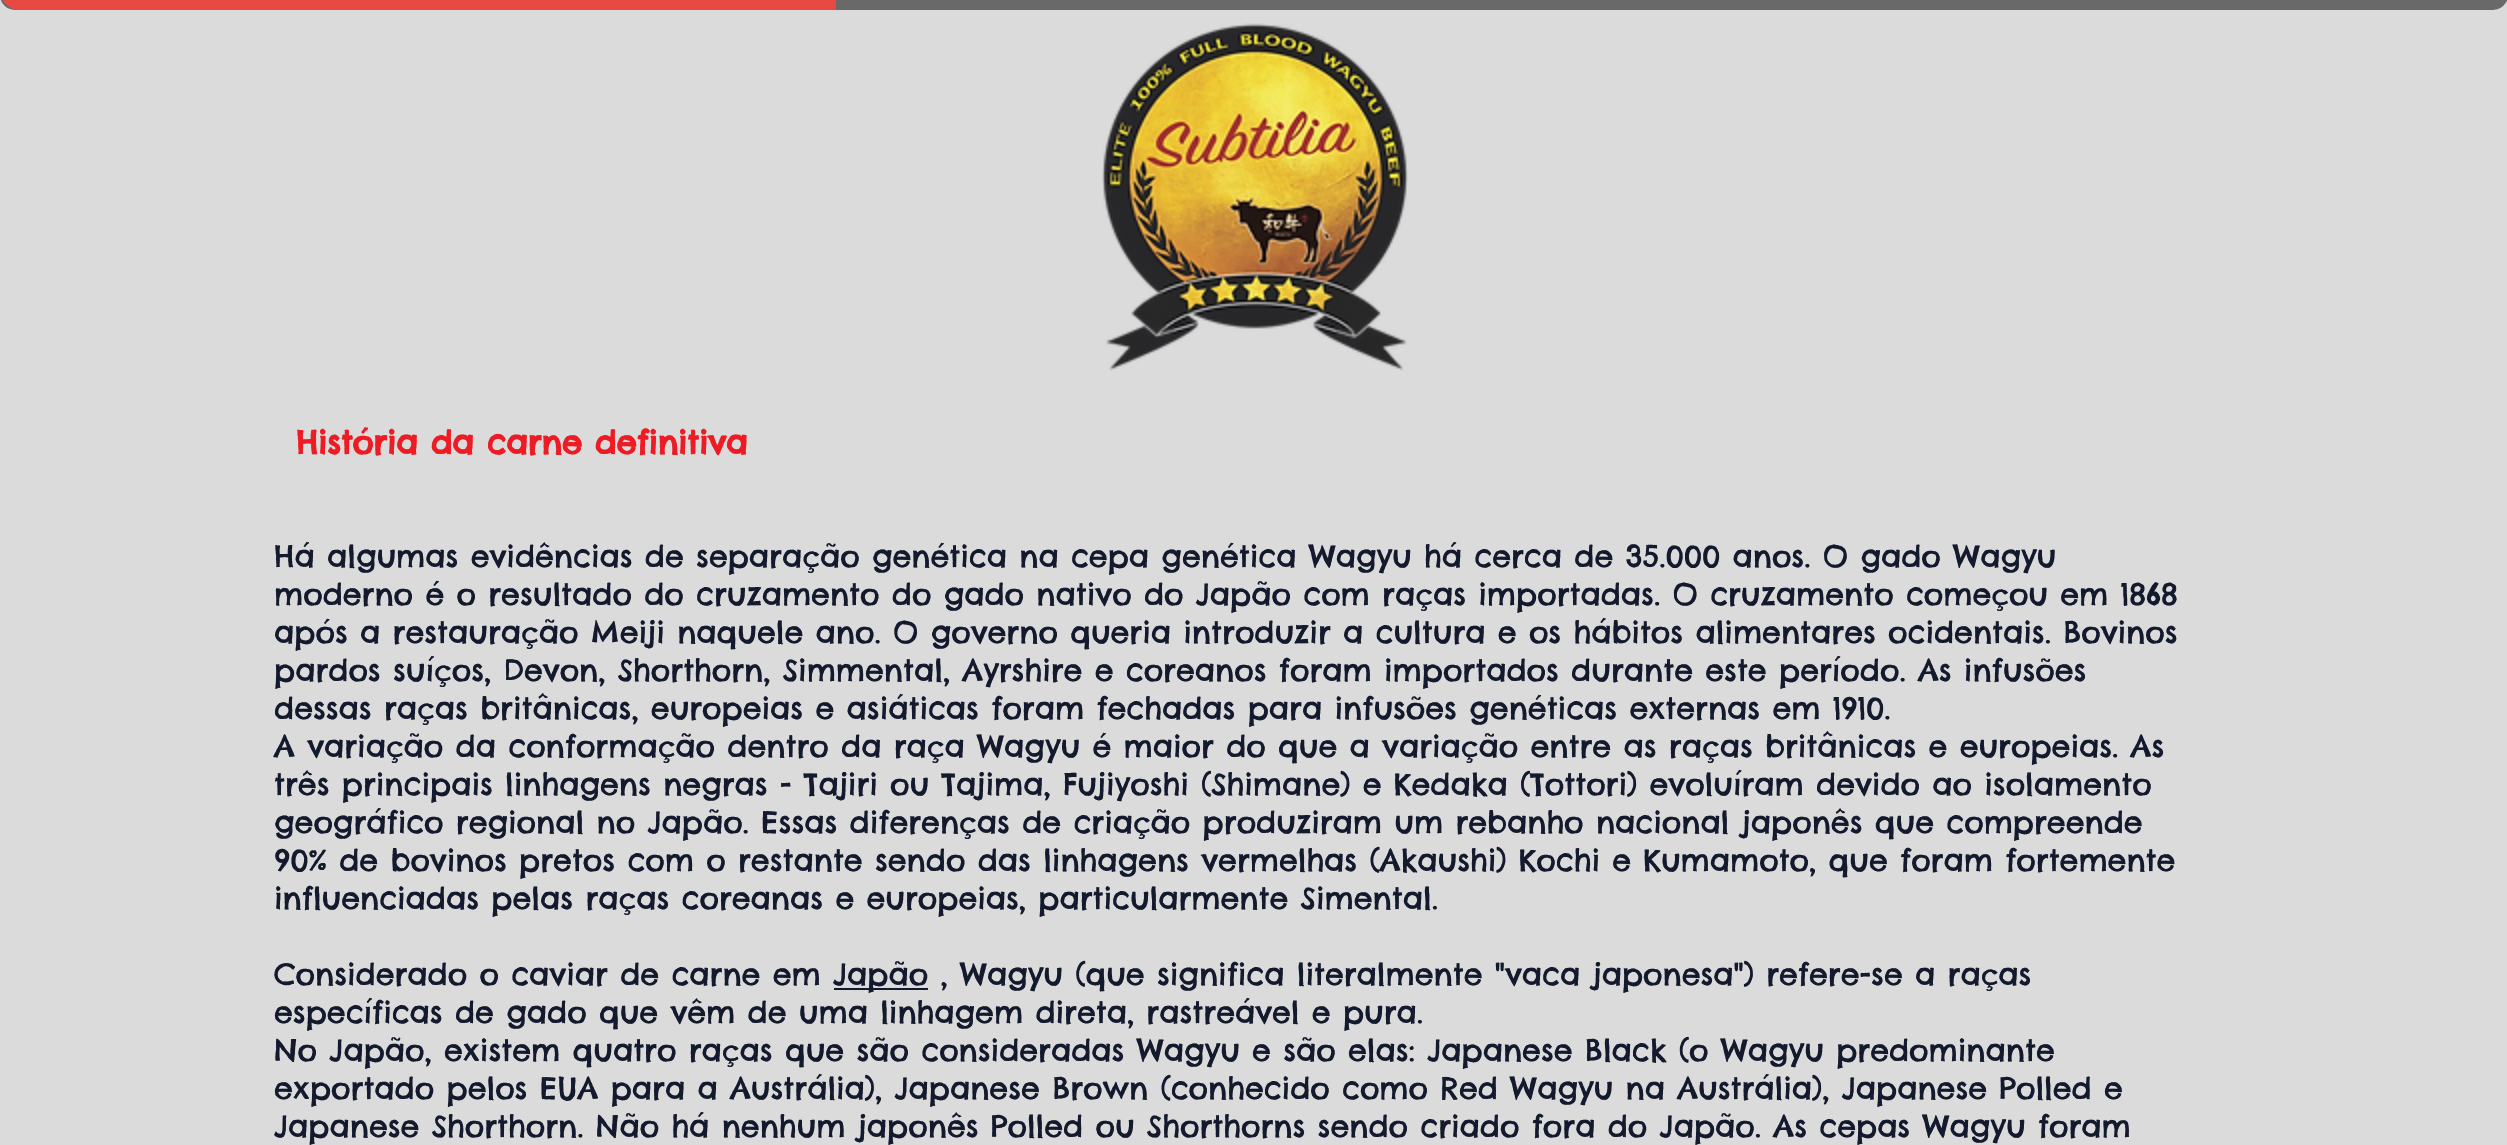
#include "include/core/SkBlurTypes.h"
#include "include/core/SkCanvas.h"
#include "include/core/SkData.h"
#include "include/core/SkFont.h"
#include "include/core/SkFontMgr.h"
#include "include/core/SkImage.h"
#include "include/core/SkMaskFilter.h"
#include "include/core/SkPaint.h"
#include "include/core/SkPathBuilder.h"
#include "include/core/SkTextBlob.h"
#include "include/effects/SkDashPathEffect.h"
#include "include/effects/SkGradientShader.h"
#include "include/utils/SkParsePath.h"

extern sk_sp<SkFontMgr> fontMgr;

static SkFont font(const char* family, int weight, float size, bool italic = false) {
    SkFontStyle style(weight, SkFontStyle::kNormal_Width,
        italic ? SkFontStyle::kItalic_Slant : SkFontStyle::kUpright_Slant);
    SkFont result(fontMgr->matchFamilyStyle(family, style), size);
    result.setSubpixel(true);
    return result;
}

static void drawLabel(SkCanvas* canvas, const char* s, float x, float y, const SkFont& font, SkColor color) {
    SkPaint ink(SkColor4f::FromColor(color));
    ink.setAntiAlias(true);
    canvas->drawString(s, x, y, font, ink);
}

static void fillRect(SkCanvas* canvas, float x, float y, float w, float h, SkColor color) {
    SkPaint ink(SkColor4f::FromColor(color));
    ink.setAntiAlias(true);
    canvas->drawRect(SkRect::MakeXYWH(x, y, w, h), ink);
}

static void fillRRect(SkCanvas* canvas, float x, float y, float w, float h, float radius, SkColor color) {
    SkPaint ink(SkColor4f::FromColor(color));
    ink.setAntiAlias(true);
    canvas->drawRoundRect(SkRect::MakeXYWH(x, y, w, h), radius, radius, ink);
}

static void drawPhoto(SkCanvas* canvas, const char* path, float x, float y, float w, float h) {
    auto image = SkImages::DeferredFromEncodedData(SkData::MakeFromFileName(path));
    canvas->drawImageRect(image, SkRect::MakeXYWH(x, y, w, h), SkSamplingOptions());
}

static SkPath parsePath(const char* data, bool evenOdd = false) {
    SkPath result = *SkParsePath::FromSVGString(data);
    if (evenOdd) result.setFillType(SkPathFillType::kEvenOdd);
    return result;
}

void draw(SkCanvas* canvas) {
    SkPaint paint;
    paint.setAntiAlias(true);
    canvas->clear(0xFFDBDBDB);
    fillRRect(canvas, 0, -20, 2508, 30, 20, 0xFF696969);
    paint.setColor(0xFFE84A43);
    canvas->drawPath(parsePath("M20-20H418V10H20C9 10 0 1 0-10V0C0-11 9-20 20-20Z"), paint);
    fillRect(canvas, 418, 0, 418, 10, 0xFFE84A43);
    drawPhoto(canvas, "assets/img1.png", 1102, 23, 306, 348);
    SkFont font1 = font("Chelsea Market", 700, 32);
    drawLabel(canvas, "História da carne definitiva", 296, 454, font1, 0xFFED1C24);
    SkFont font2 = font("Chelsea Market", 400, 30);
    drawLabel(canvas, "Há algumas evidências de separação genética na cepa genética Wagyu há cerca de 35.000 anos. O gado Wagyu", 274, 567, font2, 0xFF141A2D);
    drawLabel(canvas, "moderno é o resultado do cruzamento do gado nativo do Japão com raças importadas. O cruzamento começou em 1868", 274, 605, font2, 0xFF141A2D);
    drawLabel(canvas, "após a restauração Meiji naquele ano. O governo queria introduzir a cultura e os hábitos alimentares ocidentais. Bovinos", 274, 643, font2, 0xFF141A2D);
    drawLabel(canvas, "pardos suíços, Devon, Shorthorn, Simmental, Ayrshire e coreanos foram importados durante este período. As infusões", 274, 681, font2, 0xFF141A2D);
    drawLabel(canvas, "dessas raças britânicas, europeias e asiáticas foram fechadas para infusões genéticas externas em 1910.", 274, 719, font2, 0xFF141A2D);
    drawLabel(canvas, "A variação da conformação dentro da raça Wagyu é maior do que a variação entre as raças britânicas e europeias. As", 274, 757, font2, 0xFF141A2D);
    drawLabel(canvas, "três principais linhagens negras - Tajiri ou Tajima, Fujiyoshi (Shimane) e Kedaka (Tottori) evoluíram devido ao isolamento", 274, 795, font2, 0xFF141A2D);
    drawLabel(canvas, "geográfico regional no Japão. Essas diferenças de criação produziram um rebanho nacional japonês que compreende", 274, 833, font2, 0xFF141A2D);
    drawLabel(canvas, "90% de bovinos pretos com o restante sendo das linhagens vermelhas (Akaushi) Kochi e Kumamoto, que foram fortemente", 274, 871, font2, 0xFF141A2D);
    drawLabel(canvas, "influenciadas pelas raças coreanas e europeias, particularmente Simental.", 274, 909, font2, 0xFF141A2D);
    drawLabel(canvas, "Considerado o caviar de carne em", 274, 985, font2, 0xFF141A2D);
    fillRect(canvas, 834, 988, 94, 2, 0xFF141A2D);
    drawLabel(canvas, "Japão , Wagyu (que significa literalmente \"vaca japonesa\") refere-se a raças", 833, 985, font2, 0xFF141A2D);
    drawLabel(canvas, "específicas de gado que vêm de uma linhagem direta, rastreável e pura.", 274, 1023, font2, 0xFF141A2D);
    drawLabel(canvas, "No Japão, existem quatro raças que são consideradas Wagyu e são elas: Japanese Black (o Wagyu predominante", 274, 1061, font2, 0xFF141A2D);
    drawLabel(canvas, "exportado pelos EUA para a Austrália), Japanese Brown (conhecido como Red Wagyu na Austrália), Japanese Polled e", 274, 1099, font2, 0xFF141A2D);
    drawLabel(canvas, "Japanese Shorthorn. Não há nenhum japonês Polled ou Shorthorns sendo criado fora do Japão. As cepas Wagyu foram", 274, 1137, font2, 0xFF141A2D);
}
